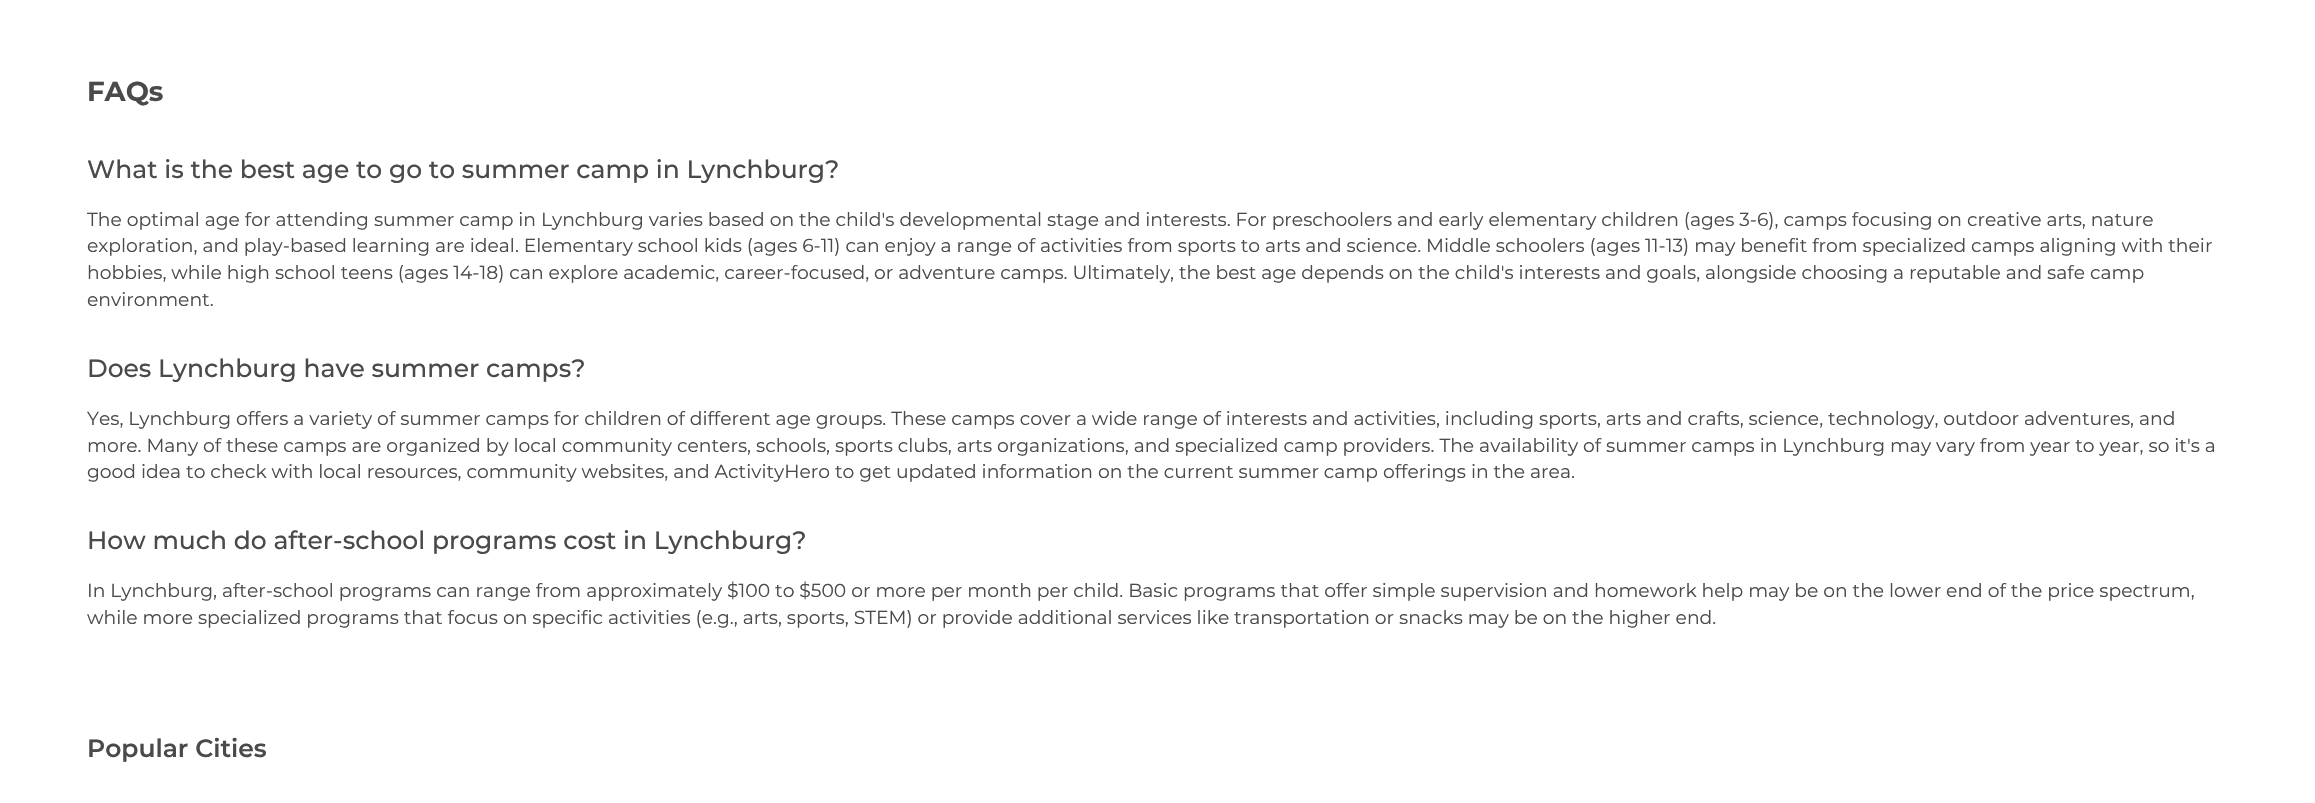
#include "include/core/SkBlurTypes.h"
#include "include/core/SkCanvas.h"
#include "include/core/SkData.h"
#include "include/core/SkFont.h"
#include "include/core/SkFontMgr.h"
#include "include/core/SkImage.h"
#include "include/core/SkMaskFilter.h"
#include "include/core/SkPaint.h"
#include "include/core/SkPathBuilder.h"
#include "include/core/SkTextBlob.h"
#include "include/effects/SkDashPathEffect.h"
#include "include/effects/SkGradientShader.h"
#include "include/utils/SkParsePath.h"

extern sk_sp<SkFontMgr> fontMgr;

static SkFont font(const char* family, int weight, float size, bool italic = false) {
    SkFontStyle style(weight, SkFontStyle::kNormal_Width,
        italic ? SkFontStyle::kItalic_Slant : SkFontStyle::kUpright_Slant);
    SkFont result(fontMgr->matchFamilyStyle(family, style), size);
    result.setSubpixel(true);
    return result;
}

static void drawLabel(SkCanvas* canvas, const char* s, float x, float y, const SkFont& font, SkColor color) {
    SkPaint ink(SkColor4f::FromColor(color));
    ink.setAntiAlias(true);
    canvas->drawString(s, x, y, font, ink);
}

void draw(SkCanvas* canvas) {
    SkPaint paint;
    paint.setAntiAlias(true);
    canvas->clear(0xFFFFFFFF);
    SkFont font1 = font("Montserrat", 700, 27.5f);
    drawLabel(canvas, "FAQs", 87, 101, font1, 0xFF4A4A4A);
    SkFont font2 = font("Montserrat", 500, 25);
    drawLabel(canvas, "What is the best age to go to summer camp in Lynchburg?", 87, 178, font2, 0xFF4A4A4A);
    SkFont font3 = font("Montserrat", 400, 18.75f);
    drawLabel(canvas, "The optimal age for attending summer camp in Lynchburg varies based on the child's developmental stage and interests. For preschoolers and early elementary children (ages 3-6), camps focusing on creative arts, nature", 87, 226, font3, 0xFF4A4A4A);
    drawLabel(canvas, "exploration, and play-based learning are ideal. Elementary school kids (ages 6-11) can enjoy a range of activities from sports to arts and science. Middle schoolers (ages 11-13) may benefit from specialized camps aligning with their", 87, 252, font3, 0xFF4A4A4A);
    drawLabel(canvas, "hobbies, while high school teens (ages 14-18) can explore academic, career-focused, or adventure camps. Ultimately, the best age depends on the child's interests and goals, alongside choosing a reputable and safe camp", 87, 279, font3, 0xFF4A4A4A);
    drawLabel(canvas, "environment.", 87, 306, font3, 0xFF4A4A4A);
    drawLabel(canvas, "Does Lynchburg have summer camps?", 87, 377, font2, 0xFF4A4A4A);
    drawLabel(canvas, "Yes, Lynchburg offers a variety of summer camps for children of different age groups. These camps cover a wide range of interests and activities, including sports, arts and crafts, science, technology, outdoor adventures, and", 87, 425, font3, 0xFF4A4A4A);
    drawLabel(canvas, "more. Many of these camps are organized by local community centers, schools, sports clubs, arts organizations, and specialized camp providers. The availability of summer camps in Lynchburg may vary from year to year, so it's a", 87, 452, font3, 0xFF4A4A4A);
    drawLabel(canvas, "good idea to check with local resources, community websites, and ActivityHero to get updated information on the current summer camp offerings in the area.", 87, 478, font3, 0xFF4A4A4A);
    drawLabel(canvas, "How much do after-school programs cost in Lynchburg?", 87, 549, font2, 0xFF4A4A4A);
    drawLabel(canvas, "In Lynchburg, after-school programs can range from approximately $100 to $500 or more per month per child. Basic programs that offer simple supervision and homework help may be on the lower end of the price spectrum,", 87, 597, font3, 0xFF4A4A4A);
    drawLabel(canvas, "while more specialized programs that focus on specific activities (e.g., arts, sports, STEM) or provide additional services like transportation or snacks may be on the higher end.", 87, 624, font3, 0xFF4A4A4A);
    SkFont font4 = font("Montserrat", 600, 25);
    drawLabel(canvas, "Popular Cities", 87, 757, font4, 0xFF4A4A4A);
}
